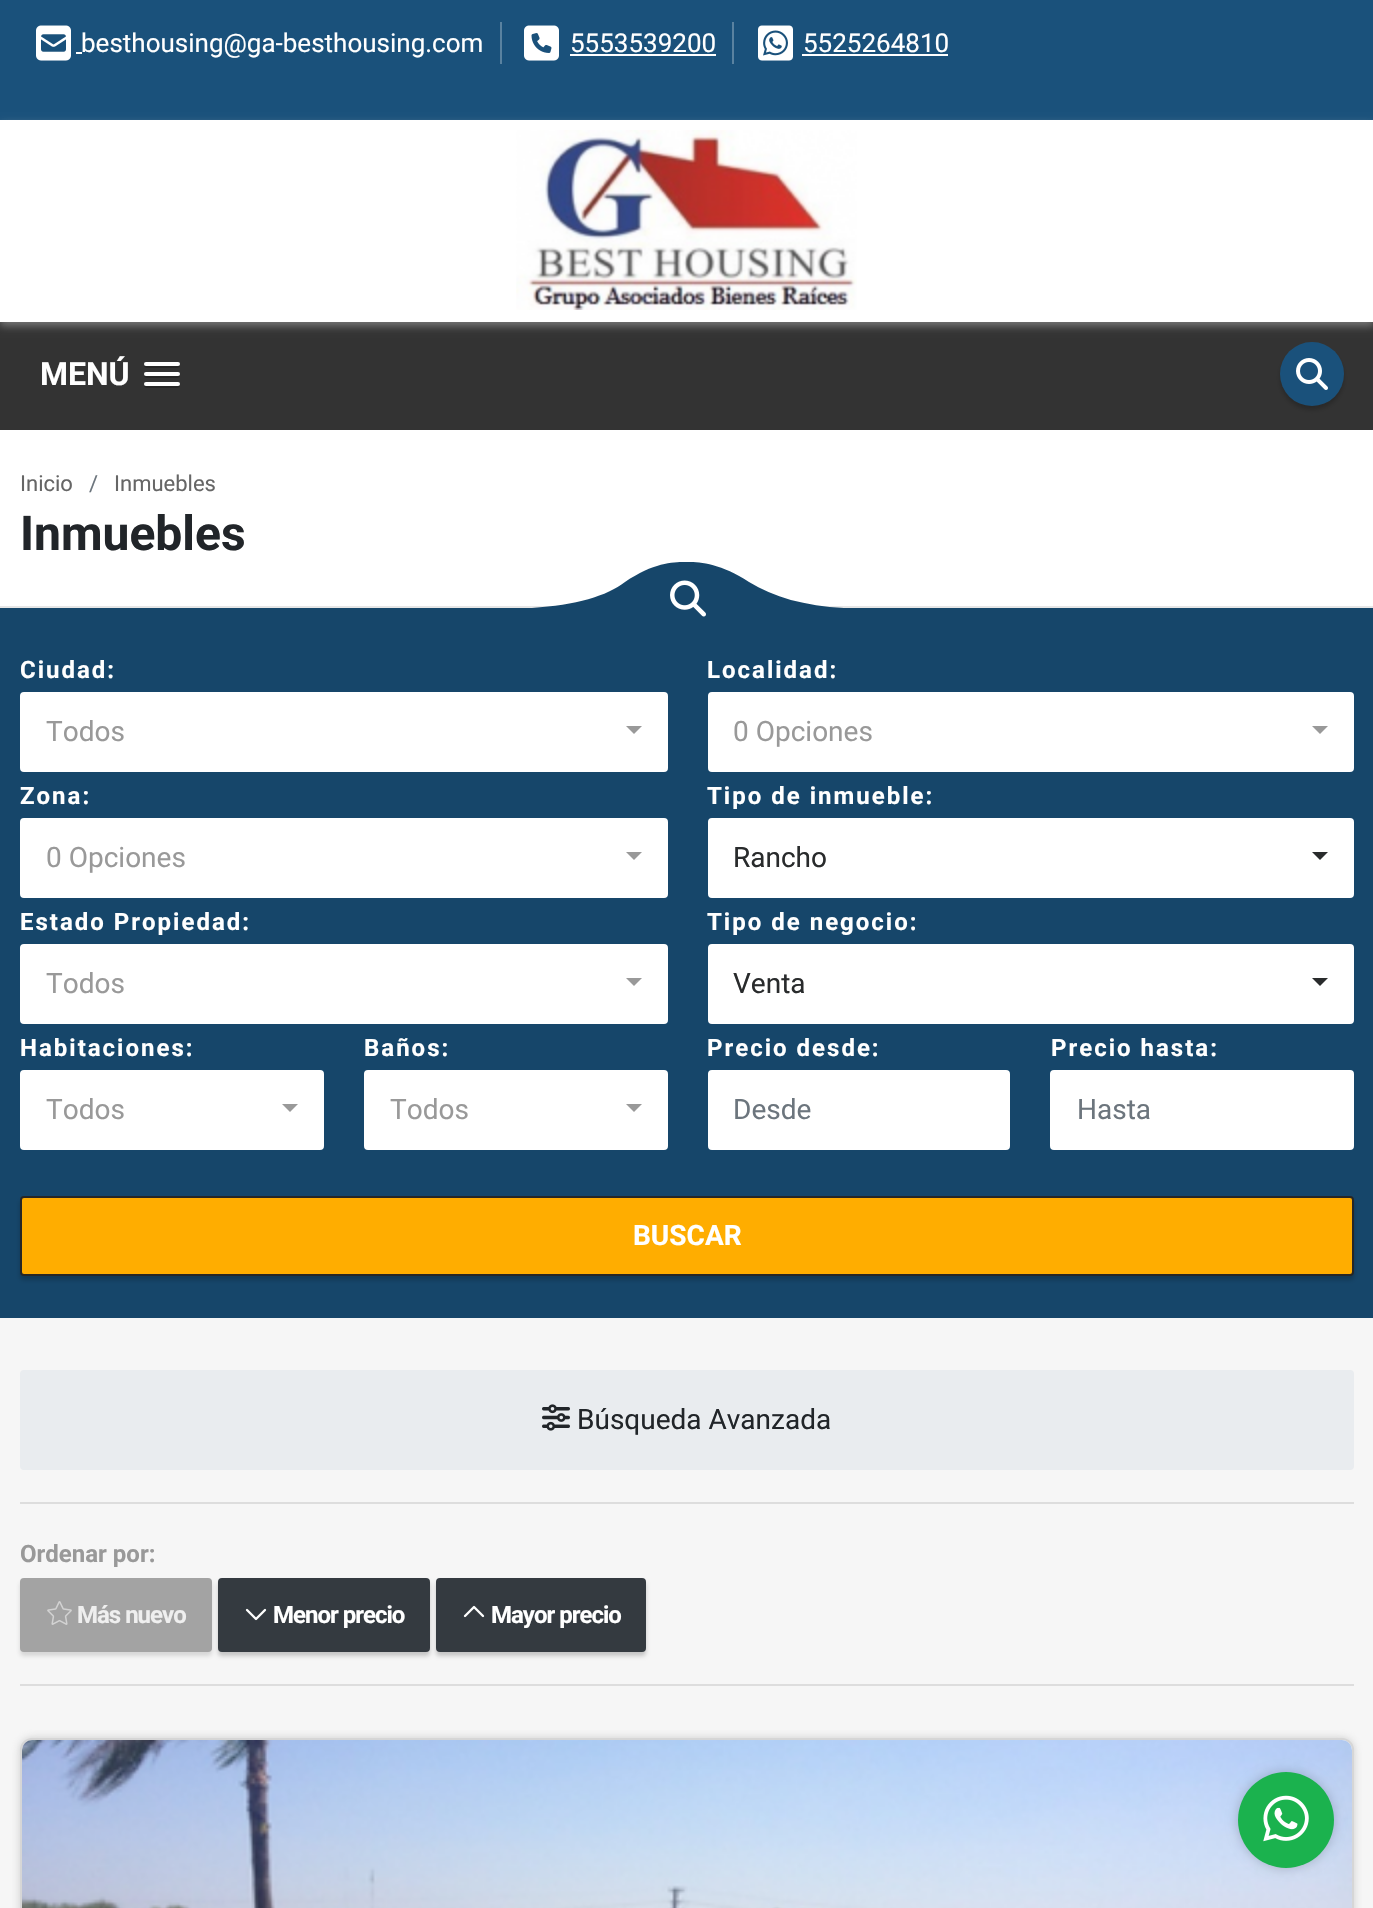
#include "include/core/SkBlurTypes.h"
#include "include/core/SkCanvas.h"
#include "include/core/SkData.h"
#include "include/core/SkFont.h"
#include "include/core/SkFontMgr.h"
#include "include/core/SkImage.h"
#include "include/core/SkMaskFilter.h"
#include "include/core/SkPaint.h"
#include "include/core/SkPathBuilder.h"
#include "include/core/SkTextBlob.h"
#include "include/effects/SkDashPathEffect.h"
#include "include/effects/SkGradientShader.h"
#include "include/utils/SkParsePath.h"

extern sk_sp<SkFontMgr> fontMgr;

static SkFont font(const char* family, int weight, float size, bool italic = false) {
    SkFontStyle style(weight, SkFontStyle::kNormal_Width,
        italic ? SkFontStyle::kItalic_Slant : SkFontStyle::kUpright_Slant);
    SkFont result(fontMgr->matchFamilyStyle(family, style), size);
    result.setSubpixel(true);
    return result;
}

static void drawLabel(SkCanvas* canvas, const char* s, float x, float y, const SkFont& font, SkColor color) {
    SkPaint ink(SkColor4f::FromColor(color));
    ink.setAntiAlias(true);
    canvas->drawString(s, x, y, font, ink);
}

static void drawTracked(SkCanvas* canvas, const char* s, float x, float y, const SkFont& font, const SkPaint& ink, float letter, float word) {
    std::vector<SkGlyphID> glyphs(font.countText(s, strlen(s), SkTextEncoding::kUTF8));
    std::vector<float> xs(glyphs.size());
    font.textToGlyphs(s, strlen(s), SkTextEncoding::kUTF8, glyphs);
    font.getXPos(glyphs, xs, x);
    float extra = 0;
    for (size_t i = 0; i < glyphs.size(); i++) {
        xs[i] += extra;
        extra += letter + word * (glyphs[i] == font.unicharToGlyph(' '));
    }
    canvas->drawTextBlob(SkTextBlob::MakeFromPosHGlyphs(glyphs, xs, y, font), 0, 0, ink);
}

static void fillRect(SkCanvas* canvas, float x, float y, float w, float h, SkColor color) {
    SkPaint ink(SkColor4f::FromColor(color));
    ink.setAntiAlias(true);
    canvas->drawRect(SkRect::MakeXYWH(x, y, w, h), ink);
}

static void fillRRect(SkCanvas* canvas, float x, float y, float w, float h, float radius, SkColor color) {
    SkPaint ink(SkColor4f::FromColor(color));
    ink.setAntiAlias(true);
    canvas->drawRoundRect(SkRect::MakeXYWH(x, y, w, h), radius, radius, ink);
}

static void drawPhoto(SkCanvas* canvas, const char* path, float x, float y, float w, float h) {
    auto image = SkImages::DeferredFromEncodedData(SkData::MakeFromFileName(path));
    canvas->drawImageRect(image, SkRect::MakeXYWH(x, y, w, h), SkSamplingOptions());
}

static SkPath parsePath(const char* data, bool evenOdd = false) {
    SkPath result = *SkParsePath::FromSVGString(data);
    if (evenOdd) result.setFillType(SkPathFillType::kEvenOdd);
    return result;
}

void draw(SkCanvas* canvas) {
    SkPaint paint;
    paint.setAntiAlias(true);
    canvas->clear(0xFFF6F6F6);
    fillRect(canvas, 0, 0, 1373, 120, 0xFF1A517B);
    fillRect(canvas, 500, 22, 2, 42, 0xFF5A82A0);
    drawPhoto(canvas, "assets/img1.png", 36, 25, 35, 36);
    fillRect(canvas, 76, 52, 6, 2, 0xFFFFFFFF);
    SkFont font1 = font("Roboto", 400, 26);
    drawLabel(canvas, "besthousing@ga-besthousing.com", 81, 52, font1, 0xFFFFFFFF);
    fillRect(canvas, 732, 22, 2, 42, 0xFF5A82A0);
    drawPhoto(canvas, "assets/img2.png", 524, 25, 35, 36);
    drawLabel(canvas, "5553539200", 570, 52, font1, 0xFFFFFFFF);
    fillRect(canvas, 570, 54, 146, 2, 0xFFFFFFFF);
    drawPhoto(canvas, "assets/img3.png", 758, 25, 35, 36);
    drawLabel(canvas, "5525264810", 803, 52, font1, 0xFFFFFFFF);
    fillRect(canvas, 802, 54, 146, 2, 0xFFFFFFFF);
    fillRect(canvas, 0, 322, 1373, 108, 0xFF333333);
    paint.setColor(0x80BABABA);
    paint.setMaskFilter(SkMaskFilter::MakeBlur(kNormal_SkBlurStyle, 4));
    canvas->drawRect(SkRect::MakeXYWH(0, 124, 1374, 202), paint);
    paint.setMaskFilter(nullptr);
    fillRect(canvas, 0, 120, 1373, 202, 0xFFFFFFFF);
    drawPhoto(canvas, "assets/img4.png", 516, 130, 341, 180);
    SkFont font2 = font("Roboto", 700, 32);
    drawLabel(canvas, "MENÚ", 40, 385, font2, 0xFFFFFFFF);
    paint.setColor(0xFF262626);
    canvas->drawPath(parsePath("M144.5 365C142 369 151 368 151.5 368H172.5C173 368 182 369 179.5 365C179.5 365.5 178.5 366 178 366H146C145.5 366 144.5 365.5 144.5 365Z"), paint);
    fillRRect(canvas, 144, 362, 36, 4, 2, 0xFFFFFFFF);
    canvas->drawPath(parsePath("M144.5 375C142 379 151 378 151.5 378H172.5C173 378 182 379 179.5 375C179.5 375.5 178.5 376 178 376H146C145.5 376 144.5 375.5 144.5 375Z"), paint);
    fillRRect(canvas, 144, 372, 36, 4, 2, 0xFFFFFFFF);
    canvas->drawPath(parsePath("M144.5 385C142 389 151 388 151.5 388H172.5C173 388 182 389 179.5 385C179.5 385.5 178.5 386 178 386H146C145.5 386 144.5 385.5 144.5 385Z"), paint);
    fillRRect(canvas, 144, 382, 36, 4, 2, 0xFFFFFFFF);
    paint.setColor(0x33000000);
    paint.setMaskFilter(SkMaskFilter::MakeBlur(kNormal_SkBlurStyle, 2));
    canvas->drawRoundRect(SkRect::MakeXYWH(1280, 346, 64, 64), 32, 32, paint);
    paint.setMaskFilter(nullptr);
    paint.setColor(0xFF1A517B);
    canvas->drawCircle(1312, 374, 32, paint);
    drawPhoto(canvas, "assets/img5.png", 1296, 358, 32, 32);
    fillRect(canvas, 0, 430, 1373, 176, 0xFFFFFFFF);
    fillRect(canvas, 0, 606, 1373, 2, 0xFFE6E6E6);
    SkFont font3 = font("Roboto", 400, 22);
    drawLabel(canvas, "Inicio", 20, 491, font3, 0xFF666666);
    drawLabel(canvas, "/", 89, 491, font3, 0xFF6C757D);
    drawLabel(canvas, "Inmuebles", 114, 491, font3, 0xFF666666);
    SkFont font4 = font("Roboto", 700, 48);
    drawLabel(canvas, "Inmuebles", 20, 550, font4, 0xFF212529);
    paint.setColor(0xFF16466A);
    canvas->drawPath(parsePath("M688 562C701 562 722 564 749 582C773 597 805 606 844 608H532C576 605 607 596 625 582C656 561 676 562 688 562Z", true), paint);
    fillRect(canvas, 0, 608, 1373, 710, 0xFF16466A);
    drawPhoto(canvas, "assets/img6.png", 670, 580, 36, 37);
    SkFont font5 = font("Roboto", 700, 24);
    paint.setColor(0xFFFFFFFF);
    drawTracked(canvas, "Ciudad:", 20, 678, font5, paint, 2, 0);
    canvas->drawRoundRect(SkRect::MakeXYWH(21, 693, 646, 78), 3, 3, paint);
    paint.setStroke(true);
    paint.setStrokeWidth(2);
    canvas->drawRoundRect(SkRect::MakeXYWH(21, 693, 646, 78), 3, 3, paint);
    SkFont font6 = font("Roboto", 400, 28);
    drawLabel(canvas, "Todos", 46, 741, font6, 0xFF999999);
    paint.setStroke(false);
    paint.setColor(0xFF999999);
    canvas->drawPath(parsePath("M626 726H642L634 734Z"), paint);
    paint.setColor(0xFFFFFFFF);
    drawTracked(canvas, "Localidad:", 707, 678, font5, paint, 2, 0);
    canvas->drawRoundRect(SkRect::MakeXYWH(709, 693, 644, 78), 3, 3, paint);
    paint.setStroke(true);
    canvas->drawRoundRect(SkRect::MakeXYWH(709, 693, 644, 78), 3, 3, paint);
    drawLabel(canvas, "0 Opciones", 733, 741, font6, 0xFF999999);
    paint.setStroke(false);
    paint.setColor(0xFF999999);
    canvas->drawPath(parsePath("M1312 726H1328L1320 734Z"), paint);
    paint.setColor(0xFFFFFFFF);
    drawTracked(canvas, "Zona:", 20, 804, font5, paint, 2, 0);
    canvas->drawRoundRect(SkRect::MakeXYWH(21, 819, 646, 78), 3, 3, paint);
    paint.setStroke(true);
    canvas->drawRoundRect(SkRect::MakeXYWH(21, 819, 646, 78), 3, 3, paint);
    drawLabel(canvas, "0 Opciones", 46, 867, font6, 0xFF999999);
    paint.setStroke(false);
    paint.setColor(0xFF999999);
    canvas->drawPath(parsePath("M626 852H642L634 860Z"), paint);
    paint.setColor(0xFFFFFFFF);
    drawTracked(canvas, "Tipo de inmueble:", 707, 804, font5, paint, 2, 0);
    canvas->drawRoundRect(SkRect::MakeXYWH(709, 819, 644, 78), 3, 3, paint);
    paint.setStroke(true);
    canvas->drawRoundRect(SkRect::MakeXYWH(709, 819, 644, 78), 3, 3, paint);
    drawLabel(canvas, "Rancho", 733, 867, font6, 0xFF292B2C);
    paint.setStroke(false);
    paint.setColor(0xFF292B2C);
    canvas->drawPath(parsePath("M1312 852H1328L1320 860Z"), paint);
    paint.setColor(0xFFFFFFFF);
    drawTracked(canvas, "Estado Propiedad:", 20, 930, font5, paint, 2, 0);
    canvas->drawRoundRect(SkRect::MakeXYWH(21, 945, 646, 78), 3, 3, paint);
    paint.setStroke(true);
    canvas->drawRoundRect(SkRect::MakeXYWH(21, 945, 646, 78), 3, 3, paint);
    drawLabel(canvas, "Todos", 46, 993, font6, 0xFF999999);
    paint.setStroke(false);
    paint.setColor(0xFF999999);
    canvas->drawPath(parsePath("M626 978H642L634 986Z"), paint);
    paint.setColor(0xFFFFFFFF);
    drawTracked(canvas, "Tipo de negocio:", 707, 930, font5, paint, 2, 0);
    canvas->drawRoundRect(SkRect::MakeXYWH(709, 945, 644, 78), 3, 3, paint);
    paint.setStroke(true);
    canvas->drawRoundRect(SkRect::MakeXYWH(709, 945, 644, 78), 3, 3, paint);
    drawLabel(canvas, "Venta", 733, 993, font6, 0xFF292B2C);
    paint.setStroke(false);
    paint.setColor(0xFF292B2C);
    canvas->drawPath(parsePath("M1312 978H1328L1320 986Z"), paint);
    paint.setColor(0xFFFFFFFF);
    drawTracked(canvas, "Habitaciones:", 20, 1056, font5, paint, 2, 0);
    canvas->drawRoundRect(SkRect::MakeXYWH(21, 1071, 302, 78), 3, 3, paint);
    paint.setStroke(true);
    canvas->drawRoundRect(SkRect::MakeXYWH(21, 1071, 302, 78), 3, 3, paint);
    drawLabel(canvas, "Todos", 46, 1119, font6, 0xFF999999);
    paint.setStroke(false);
    paint.setColor(0xFF999999);
    canvas->drawPath(parsePath("M282 1104H298L290 1112Z"), paint);
    paint.setColor(0xFFFFFFFF);
    drawTracked(canvas, "Baños:", 364, 1056, font5, paint, 2, 0);
    canvas->drawRoundRect(SkRect::MakeXYWH(365, 1071, 302, 78), 3, 3, paint);
    paint.setStroke(true);
    canvas->drawRoundRect(SkRect::MakeXYWH(365, 1071, 302, 78), 3, 3, paint);
    drawLabel(canvas, "Todos", 390, 1119, font6, 0xFF999999);
    paint.setStroke(false);
    paint.setColor(0xFF999999);
    canvas->drawPath(parsePath("M626 1104H642L634 1112Z"), paint);
    paint.setColor(0xFFFFFFFF);
    drawTracked(canvas, "Precio desde:", 707, 1056, font5, paint, 2, 0);
    canvas->drawRoundRect(SkRect::MakeXYWH(709, 1071, 300, 78), 3, 3, paint);
    paint.setStroke(true);
    canvas->drawRoundRect(SkRect::MakeXYWH(709, 1071, 300, 78), 3, 3, paint);
    drawLabel(canvas, "Desde", 733, 1119, font6, 0xFF6C757D);
    paint.setStroke(false);
    drawTracked(canvas, "Precio hasta:", 1051, 1056, font5, paint, 2, 0);
    canvas->drawRoundRect(SkRect::MakeXYWH(1051, 1071, 302, 78), 3, 3, paint);
    paint.setStroke(true);
    canvas->drawRoundRect(SkRect::MakeXYWH(1051, 1071, 302, 78), 3, 3, paint);
    drawLabel(canvas, "Hasta", 1077, 1119, font6, 0xFF6C757D);
    paint.setStroke(false);
    paint.setColor(0x33000000);
    paint.setMaskFilter(SkMaskFilter::MakeBlur(kNormal_SkBlurStyle, 2));
    canvas->drawRoundRect(SkRect::MakeXYWH(20, 1200, 1334, 80), 4, 4, paint);
    paint.setMaskFilter(nullptr);
    paint.setColor(0xFFFFAD00);
    canvas->drawRoundRect(SkRect::MakeXYWH(21, 1197, 1332, 78), 3, 3, paint);
    paint.setStroke(true);
    paint.setColor(0xFF262626);
    canvas->drawRoundRect(SkRect::MakeXYWH(21, 1197, 1332, 78), 3, 3, paint);
    SkFont font7 = font("Roboto", 700, 28);
    drawLabel(canvas, "BUSCAR", 633, 1245, font7, 0xFFFFFFFF);
    paint.setStroke(false);
    paint.setColor(0xFFE9ECEF);
    canvas->drawRoundRect(SkRect::MakeXYWH(21, 1371, 1332, 98), 3, 3, paint);
    paint.setStroke(true);
    canvas->drawRoundRect(SkRect::MakeXYWH(21, 1371, 1332, 98), 3, 3, paint);
    drawPhoto(canvas, "assets/img7.png", 542, 1404, 28, 27);
    drawLabel(canvas, "Búsqueda Avanzada", 577, 1429, font6, 0xFF212529);
    fillRect(canvas, 20, 1502, 1334, 2, 0xFFDDDDDD);
    drawLabel(canvas, "Ordenar por:", 20, 1562, font5, 0xFF999999);
    paint.setStroke(false);
    paint.setColor(0x33565656);
    paint.setMaskFilter(SkMaskFilter::MakeBlur(kNormal_SkBlurStyle, 2));
    canvas->drawRoundRect(SkRect::MakeXYWH(20, 1582, 192, 74), 4, 4, paint);
    paint.setMaskFilter(nullptr);
    paint.setColor(0xFFA3A3A3);
    canvas->drawRoundRect(SkRect::MakeXYWH(21, 1579, 190, 72), 3, 3, paint);
    paint.setStroke(true);
    canvas->drawRoundRect(SkRect::MakeXYWH(21, 1579, 190, 72), 3, 3, paint);
    drawPhoto(canvas, "assets/img8.png", 47, 1601, 25, 24);
    paint.setStroke(false);
    paint.setColor(0xFFEFEFEF);
    drawTracked(canvas, "Más nuevo", 77, 1623, font5, paint, -1, 0);
    paint.setColor(0x33000000);
    paint.setMaskFilter(SkMaskFilter::MakeBlur(kNormal_SkBlurStyle, 2));
    canvas->drawRoundRect(SkRect::MakeXYWH(218, 1582, 212, 74), 4, 4, paint);
    paint.setMaskFilter(nullptr);
    paint.setColor(0xFF343A40);
    canvas->drawRoundRect(SkRect::MakeXYWH(219, 1579, 210, 72), 3, 3, paint);
    paint.setStroke(true);
    canvas->drawRoundRect(SkRect::MakeXYWH(219, 1579, 210, 72), 3, 3, paint);
    drawPhoto(canvas, "assets/img9.png", 245, 1608, 22, 13);
    paint.setStroke(false);
    paint.setColor(0xFFFFFFFF);
    drawTracked(canvas, "Menor precio", 273, 1623, font5, paint, -1, 0);
    paint.setColor(0x33000000);
    paint.setMaskFilter(SkMaskFilter::MakeBlur(kNormal_SkBlurStyle, 2));
    canvas->drawRoundRect(SkRect::MakeXYWH(436, 1582, 210, 74), 4, 4, paint);
    paint.setMaskFilter(nullptr);
    paint.setColor(0xFF343A40);
    canvas->drawRoundRect(SkRect::MakeXYWH(437, 1579, 208, 72), 3, 3, paint);
    paint.setStroke(true);
    canvas->drawRoundRect(SkRect::MakeXYWH(437, 1579, 208, 72), 3, 3, paint);
    drawPhoto(canvas, "assets/img10.png", 463, 1605, 22, 13);
    paint.setStroke(false);
    paint.setColor(0xFFFFFFFF);
    drawTracked(canvas, "Mayor precio", 491, 1623, font5, paint, -1, 0);
    fillRect(canvas, 20, 1684, 1334, 2, 0xFFDDDDDD);
    paint.setColor(0x80A3A3A3);
    paint.setMaskFilter(SkMaskFilter::MakeBlur(kNormal_SkBlurStyle, 4));
    canvas->drawRoundRect(SkRect::MakeXYWH(20, 1738, 1334, 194), 12, 12, paint);
    paint.setMaskFilter(nullptr);
    paint.setColor(0xFFFFFFFF);
    canvas->drawRoundRect(SkRect::MakeXYWH(21, 1739, 1332, 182), 11, 11, paint);
    paint.setStroke(true);
    paint.setColor(0xFFD6D6D6);
    canvas->drawRoundRect(SkRect::MakeXYWH(21, 1739, 1332, 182), 11, 11, paint);
    drawPhoto(canvas, "assets/img11.png", 22, 1740, 1330, 168);
    paint.setStroke(false);
    paint.setColor(0x33000000);
    paint.setMaskFilter(SkMaskFilter::MakeBlur(kNormal_SkBlurStyle, 6));
    canvas->drawRoundRect(SkRect::MakeXYWH(1238, 1772, 96, 96), 48, 48, paint);
    paint.setMaskFilter(nullptr);
    paint.setColor(0xFF1BB24E);
    canvas->drawCircle(1286, 1820, 48, paint);
    drawPhoto(canvas, "assets/img12.png", 1263, 1795, 46, 47);
}
